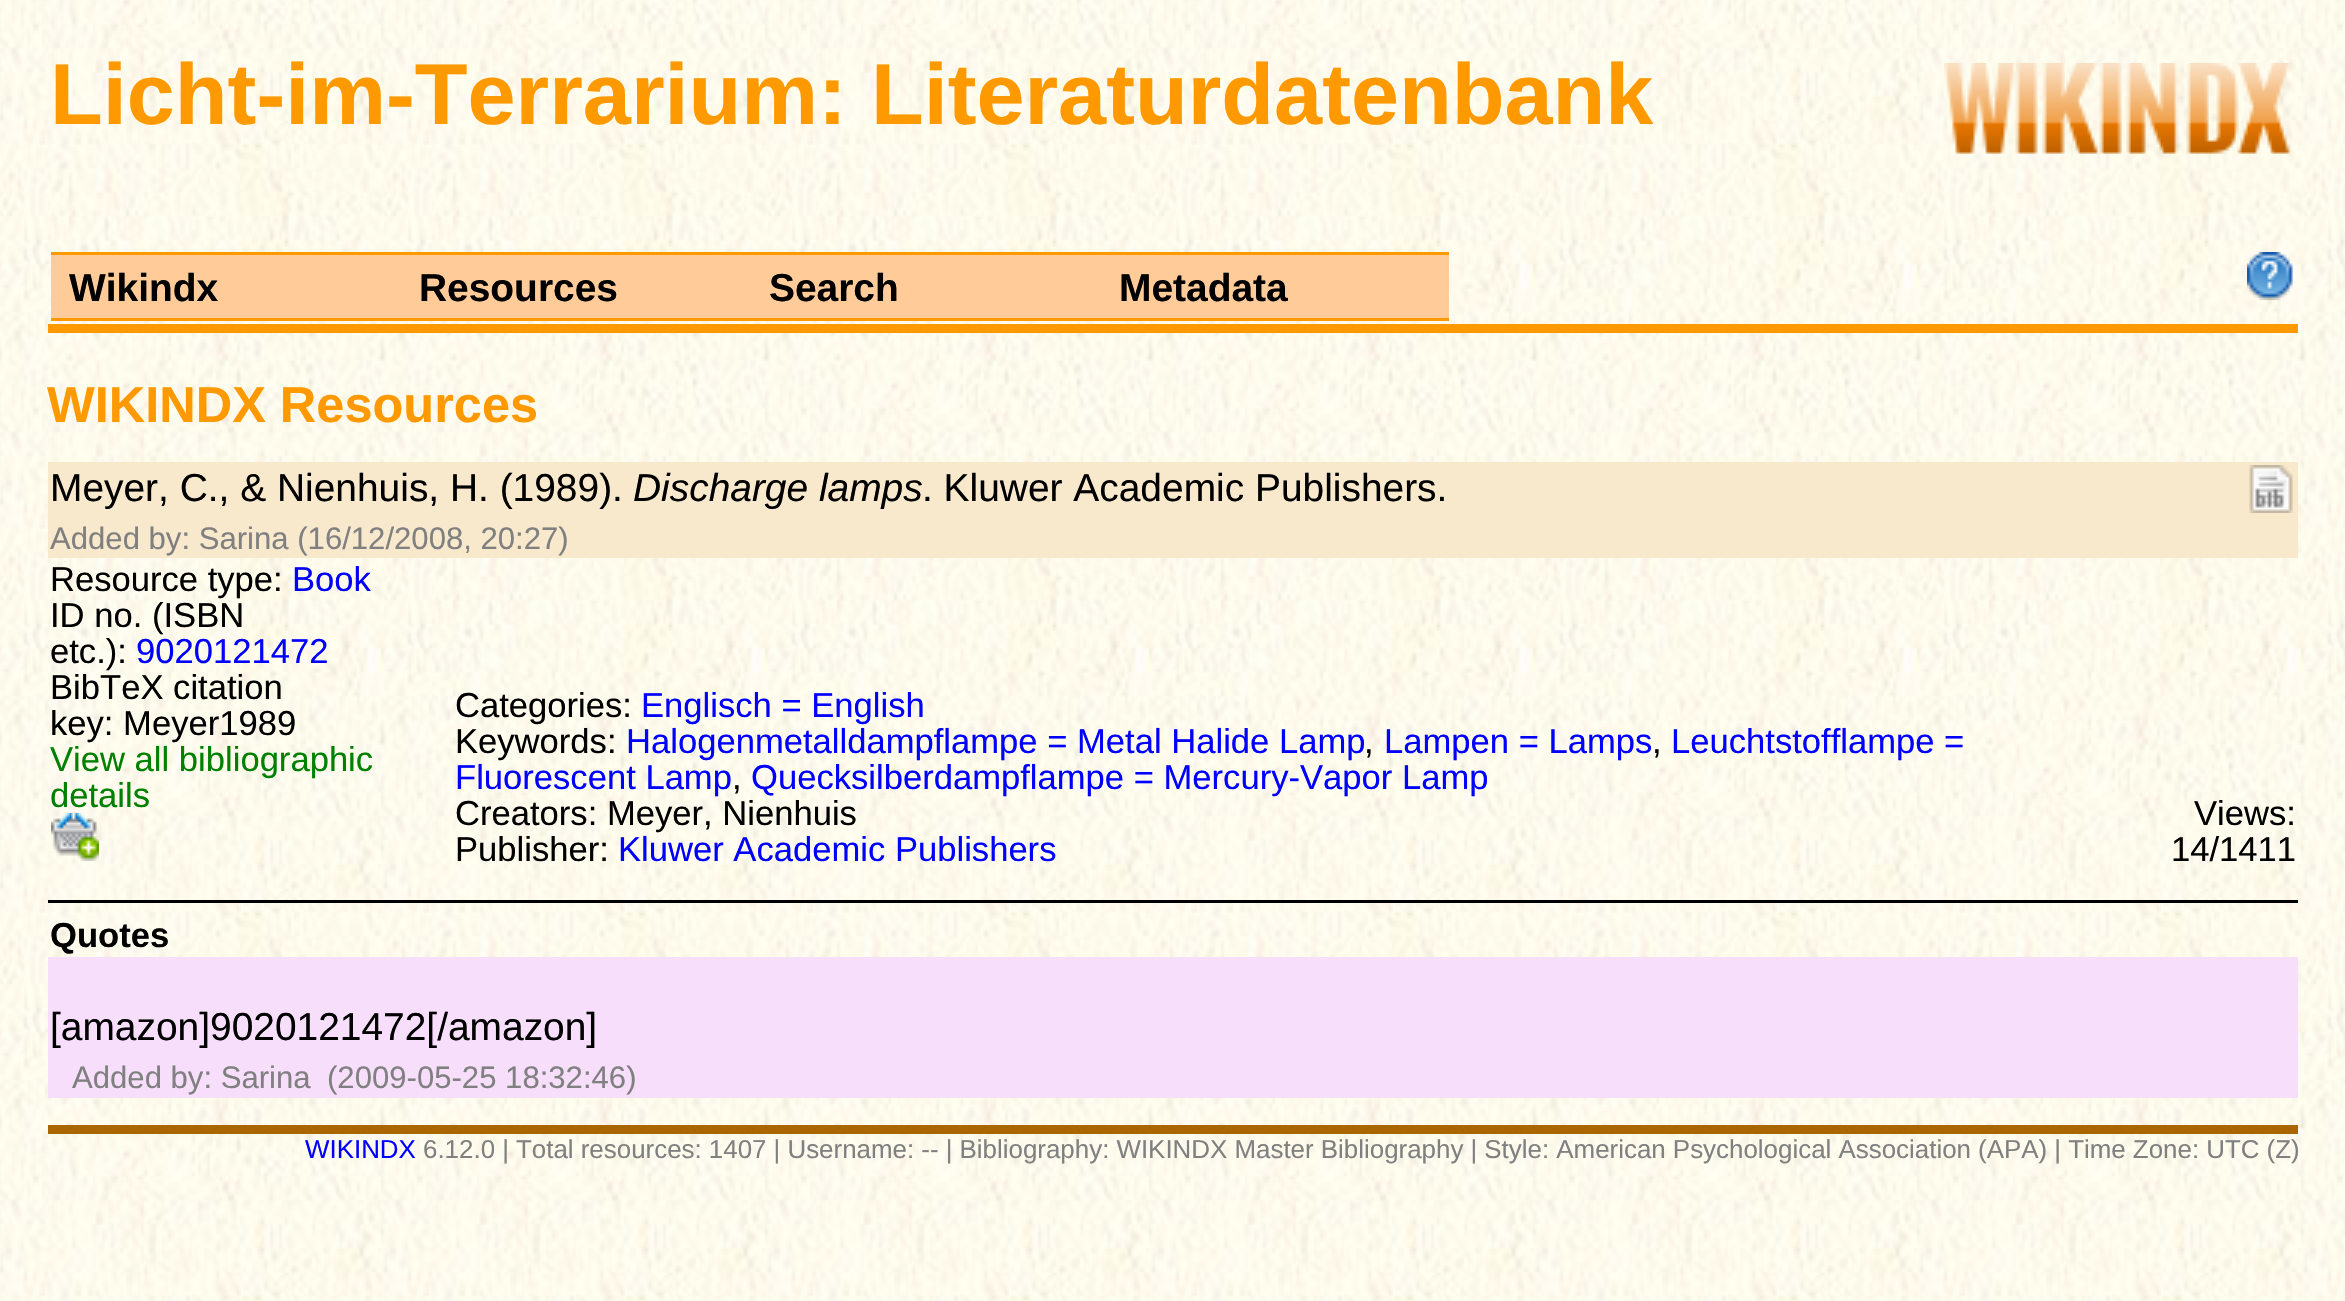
#include "include/core/SkBlurTypes.h"
#include "include/core/SkCanvas.h"
#include "include/core/SkData.h"
#include "include/core/SkFont.h"
#include "include/core/SkFontMgr.h"
#include "include/core/SkImage.h"
#include "include/core/SkMaskFilter.h"
#include "include/core/SkPaint.h"
#include "include/core/SkPathBuilder.h"
#include "include/core/SkTextBlob.h"
#include "include/effects/SkDashPathEffect.h"
#include "include/effects/SkGradientShader.h"
#include "include/utils/SkParsePath.h"

extern sk_sp<SkFontMgr> fontMgr;

static SkFont font(const char* family, int weight, float size, bool italic = false) {
    SkFontStyle style(weight, SkFontStyle::kNormal_Width,
        italic ? SkFontStyle::kItalic_Slant : SkFontStyle::kUpright_Slant);
    SkFont result(fontMgr->matchFamilyStyle(family, style), size);
    result.setSubpixel(true);
    return result;
}

static void drawLabel(SkCanvas* canvas, const char* s, float x, float y, const SkFont& font, SkColor color) {
    SkPaint ink(SkColor4f::FromColor(color));
    ink.setAntiAlias(true);
    canvas->drawString(s, x, y, font, ink);
}

static void drawTracked(SkCanvas* canvas, const char* s, float x, float y, const SkFont& font, const SkPaint& ink, float letter, float word) {
    std::vector<SkGlyphID> glyphs(font.countText(s, strlen(s), SkTextEncoding::kUTF8));
    std::vector<float> xs(glyphs.size());
    font.textToGlyphs(s, strlen(s), SkTextEncoding::kUTF8, glyphs);
    font.getXPos(glyphs, xs, x);
    float extra = 0;
    for (size_t i = 0; i < glyphs.size(); i++) {
        xs[i] += extra;
        extra += letter + word * (glyphs[i] == font.unicharToGlyph(' '));
    }
    canvas->drawTextBlob(SkTextBlob::MakeFromPosHGlyphs(glyphs, xs, y, font), 0, 0, ink);
}

static void fillRect(SkCanvas* canvas, float x, float y, float w, float h, SkColor color) {
    SkPaint ink(SkColor4f::FromColor(color));
    ink.setAntiAlias(true);
    canvas->drawRect(SkRect::MakeXYWH(x, y, w, h), ink);
}

static void drawPhoto(SkCanvas* canvas, const char* path, float x, float y, float w, float h) {
    auto image = SkImages::DeferredFromEncodedData(SkData::MakeFromFileName(path));
    canvas->drawImageRect(image, SkRect::MakeXYWH(x, y, w, h), SkSamplingOptions());
}

void draw(SkCanvas* canvas) {
    SkPaint paint;
    paint.setAntiAlias(true);
    canvas->clear(0xFFFFFFFF);
    drawPhoto(canvas, "assets/img1.png", 0, 0, 2345, 1301);
    SkFont font1 = font("Liberation Sans", 700, 86.4f);
    drawLabel(canvas, "Licht-im-Terrarium: Literaturdatenbank", 50, 124, font1, 0xFFFF9900);
    drawPhoto(canvas, "assets/img2.png", 1944, 63, 347, 91);
    fillRect(canvas, 48, 324, 2250, 9, 0xFFFF9900);
    fillRect(canvas, 51, 255, 1398, 63, 0xFFFFCC99);
    fillRect(canvas, 51, 252, 1398, 3, 0xFFFF9900);
    fillRect(canvas, 51, 318, 1398, 3, 0xFFFF9900);
    SkFont font2 = font("Liberation Sans", 700, 38.9f);
    drawLabel(canvas, "Wikindx", 69, 301, font2, 0xFF000000);
    drawLabel(canvas, "Resources", 419, 301, font2, 0xFF000000);
    drawLabel(canvas, "Search", 769, 301, font2, 0xFF000000);
    drawLabel(canvas, "Metadata", 1119, 301, font2, 0xFF000000);
    drawPhoto(canvas, "assets/img3.png", 2247, 252, 46, 48);
    SkFont font3 = font("Liberation Sans", 700, 50.5f);
    drawLabel(canvas, "WIKINDX Resources", 47, 422, font3, 0xFFFF9900);
    fillRect(canvas, 48, 462, 2250, 96, 0xFFF8E8CC);
    SkFont font4 = font("Liberation Sans", 400, 38.9f);
    drawLabel(canvas, "Meyer, C., & Nienhuis, H. (1989).", 50, 501, font4, 0xFF000000);
    SkFont font5 = font("Liberation Sans", 400, 38.9f, true);
    drawLabel(canvas, "Discharge lamps", 633, 501, font5, 0xFF000000);
    drawLabel(canvas, ". Kluwer Academic Publishers.", 922, 501, font4, 0xFF000000);
    SkFont font6 = font("Liberation Sans", 400, 31.1f);
    drawLabel(canvas, "Added by: Sarina (16/12/2008, 20:27)", 50, 549, font6, 0xFF808080);
    drawPhoto(canvas, "assets/img4.png", 2249, 465, 44, 48);
    SkFont font7 = font("Liberation Sans", 400, 34.6f);
    drawLabel(canvas, "Resource type:", 50, 591, font7, 0xFF000000);
    drawLabel(canvas, "Book", 292, 591, font7, 0xFF0000FF);
    drawLabel(canvas, "ID no. (ISBN", 50, 627, font7, 0xFF000000);
    drawLabel(canvas, "etc.):", 50, 663, font7, 0xFF000000);
    drawLabel(canvas, "9020121472", 136, 663, font7, 0xFF0000FF);
    drawLabel(canvas, "BibTeX citation", 50, 699, font7, 0xFF000000);
    drawLabel(canvas, "key: Meyer1989", 50, 735, font7, 0xFF000000);
    drawLabel(canvas, "View all bibliographic", 50, 771, font7, 0xFF008000);
    drawLabel(canvas, "details", 50, 807, font7, 0xFF008000);
    drawPhoto(canvas, "assets/img5.png", 51, 813, 48, 48);
    drawLabel(canvas, "Categories:", 455, 717, font7, 0xFF000000);
    drawLabel(canvas, "Englisch = English", 641, 717, font7, 0xFF0000FF);
    drawLabel(canvas, "Keywords:", 455, 753, font7, 0xFF000000);
    drawLabel(canvas, "Halogenmetalldampflampe = Metal Halide Lamp", 626, 753, font7, 0xFF0000FF);
    drawLabel(canvas, ",", 1364, 753, font7, 0xFF000000);
    drawLabel(canvas, "Lampen = Lamps", 1384, 753, font7, 0xFF0000FF);
    drawLabel(canvas, ",", 1652, 753, font7, 0xFF000000);
    drawLabel(canvas, "Leuchtstofflampe =", 1671, 753, font7, 0xFF0000FF);
    drawLabel(canvas, "Fluorescent Lamp", 455, 789, font7, 0xFF0000FF);
    drawLabel(canvas, ",", 732, 789, font7, 0xFF000000);
    drawLabel(canvas, "Quecksilberdampflampe = Mercury-Vapor Lamp", 751, 789, font7, 0xFF0000FF);
    drawLabel(canvas, "Creators: Meyer, Nienhuis", 455, 825, font7, 0xFF000000);
    drawLabel(canvas, "Publisher:", 455, 861, font7, 0xFF000000);
    drawLabel(canvas, "Kluwer Academic Publishers", 618, 861, font7, 0xFF0000FF);
    drawLabel(canvas, "Views:", 2194, 825, font7, 0xFF000000);
    drawLabel(canvas, "14/1411", 2171, 861, font7, 0xFF000000);
    fillRect(canvas, 48, 900, 2250, 3, 0xFF000000);
    SkFont font8 = font("Liberation Sans", 700, 34.6f);
    drawLabel(canvas, "Quotes", 50, 947, font8, 0xFF000000);
    fillRect(canvas, 48, 957, 2250, 141, 0xFFF7DEFB);
    drawLabel(canvas, "[amazon]9020121472[/amazon]", 50, 1040, font4, 0xFF000000);
    drawLabel(canvas, "Added by: Sarina", 72, 1088, font6, 0xFF808080);
    drawLabel(canvas, "(2009-05-25 18:32:46)", 327, 1088, font6, 0xFF808080);
    fillRect(canvas, 48, 1125, 2250, 9, 0xFFAA6600);
    SkFont font9 = font("Liberation Sans", 400, 25.92f);
    drawLabel(canvas, "WIKINDX", 305, 1158, font9, 0xFF0000FF);
    paint.setColor(0xFF808080);
    drawTracked(canvas, "6.12.0 | Total resources: 1407 | Username: -- | Bibliography: WIKINDX Master Bibliography | Style: American Psychological Association (APA) | Time Zone: UTC (Z)", 423, 1158, font9, paint, 0, -0.1f);
}
